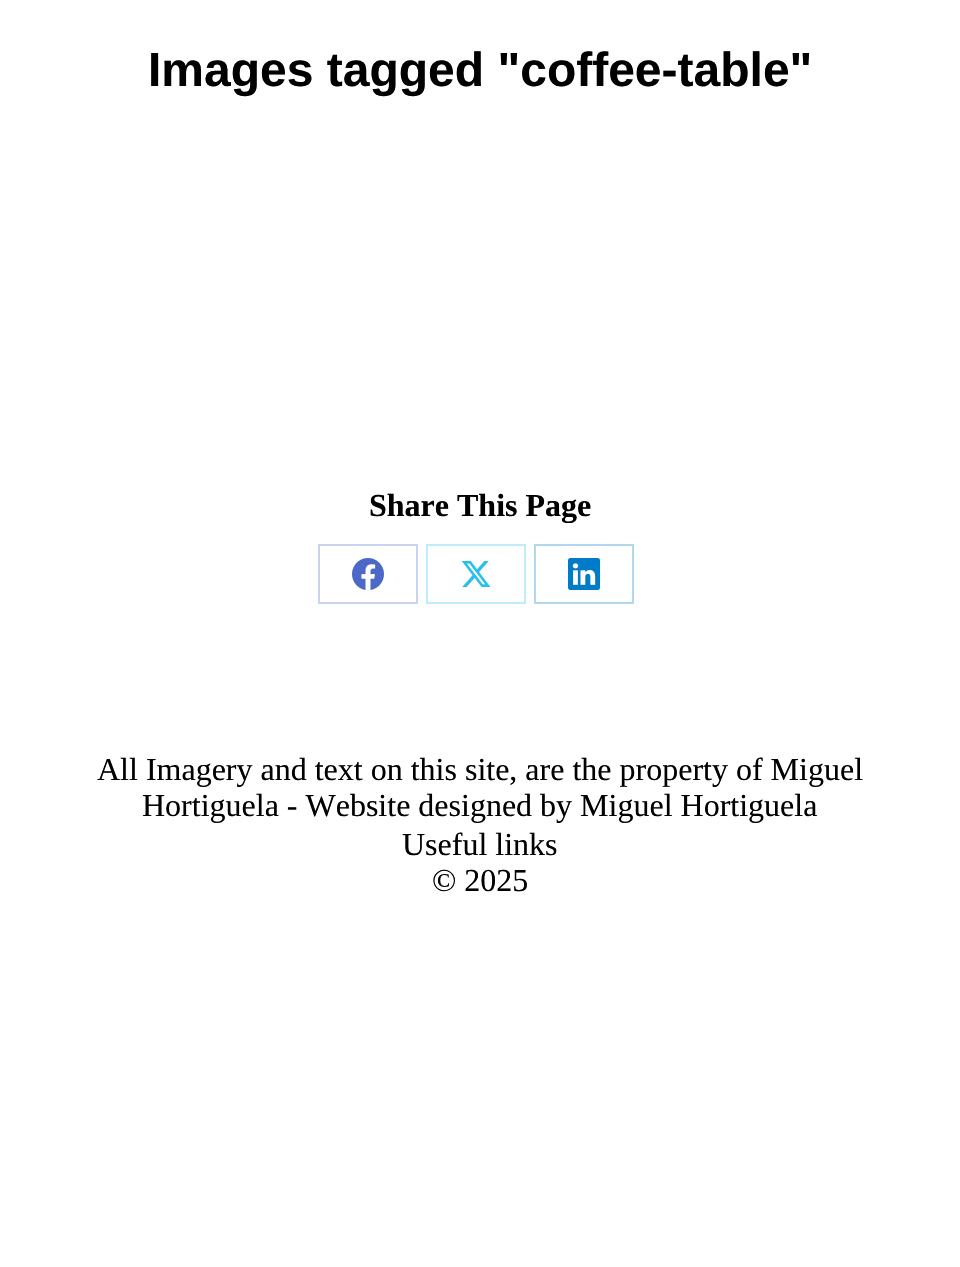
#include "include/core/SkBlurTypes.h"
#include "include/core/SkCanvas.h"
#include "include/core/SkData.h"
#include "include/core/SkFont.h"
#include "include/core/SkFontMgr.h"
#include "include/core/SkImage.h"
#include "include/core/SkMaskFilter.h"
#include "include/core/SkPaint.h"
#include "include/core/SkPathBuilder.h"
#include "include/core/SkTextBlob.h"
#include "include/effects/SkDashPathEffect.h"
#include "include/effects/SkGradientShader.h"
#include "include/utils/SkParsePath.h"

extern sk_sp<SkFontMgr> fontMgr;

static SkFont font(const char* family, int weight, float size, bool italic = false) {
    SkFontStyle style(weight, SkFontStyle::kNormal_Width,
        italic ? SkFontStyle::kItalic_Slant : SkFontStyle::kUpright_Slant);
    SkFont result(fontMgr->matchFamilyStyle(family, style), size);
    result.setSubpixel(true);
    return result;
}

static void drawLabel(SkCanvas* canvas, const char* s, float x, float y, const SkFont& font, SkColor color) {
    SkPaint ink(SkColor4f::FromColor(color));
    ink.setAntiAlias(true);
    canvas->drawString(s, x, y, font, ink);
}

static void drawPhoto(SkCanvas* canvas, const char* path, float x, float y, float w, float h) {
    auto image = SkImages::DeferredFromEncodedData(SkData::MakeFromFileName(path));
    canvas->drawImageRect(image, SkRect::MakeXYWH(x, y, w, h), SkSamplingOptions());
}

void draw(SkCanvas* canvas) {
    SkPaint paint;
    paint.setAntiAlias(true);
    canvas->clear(0xFFFFFFFF);
    SkFont font1 = font("Liberation Sans", 700, 48);
    drawLabel(canvas, "Images tagged \"coffee-table\"", 148, 86, font1, 0xFF000000);
    SkFont font2 = font("Liberation Serif", 700, 32);
    drawLabel(canvas, "Share This Page", 369, 516, font2, 0xFF000000);
    paint.setStroke(true);
    paint.setStrokeWidth(2);
    paint.setColor(0xFFC9D2EE);
    canvas->drawRect(SkRect::MakeXYWH(319, 545, 98, 58), paint);
    drawPhoto(canvas, "assets/img1.png", 352, 558, 32, 32);
    paint.setColor(0xFFBFECF9);
    canvas->drawRect(SkRect::MakeXYWH(427, 545, 98, 58), paint);
    drawPhoto(canvas, "assets/img2.png", 461, 561, 30, 26);
    paint.setColor(0xFFB3D7EE);
    canvas->drawRect(SkRect::MakeXYWH(535, 545, 98, 58), paint);
    drawPhoto(canvas, "assets/img3.png", 568, 558, 32, 32);
    SkFont font3 = font("Liberation Serif", 400, 32);
    drawLabel(canvas, "All Imagery and text on this site, are the property of Miguel", 97, 780, font3, 0xFF000000);
    drawLabel(canvas, "Hortiguela - Website designed by Miguel Hortiguela", 142, 816, font3, 0xFF000000);
    drawLabel(canvas, "Useful links", 402, 855, font3, 0xFF000000);
    drawLabel(canvas, "© 2025", 432, 891, font3, 0xFF000000);
}
